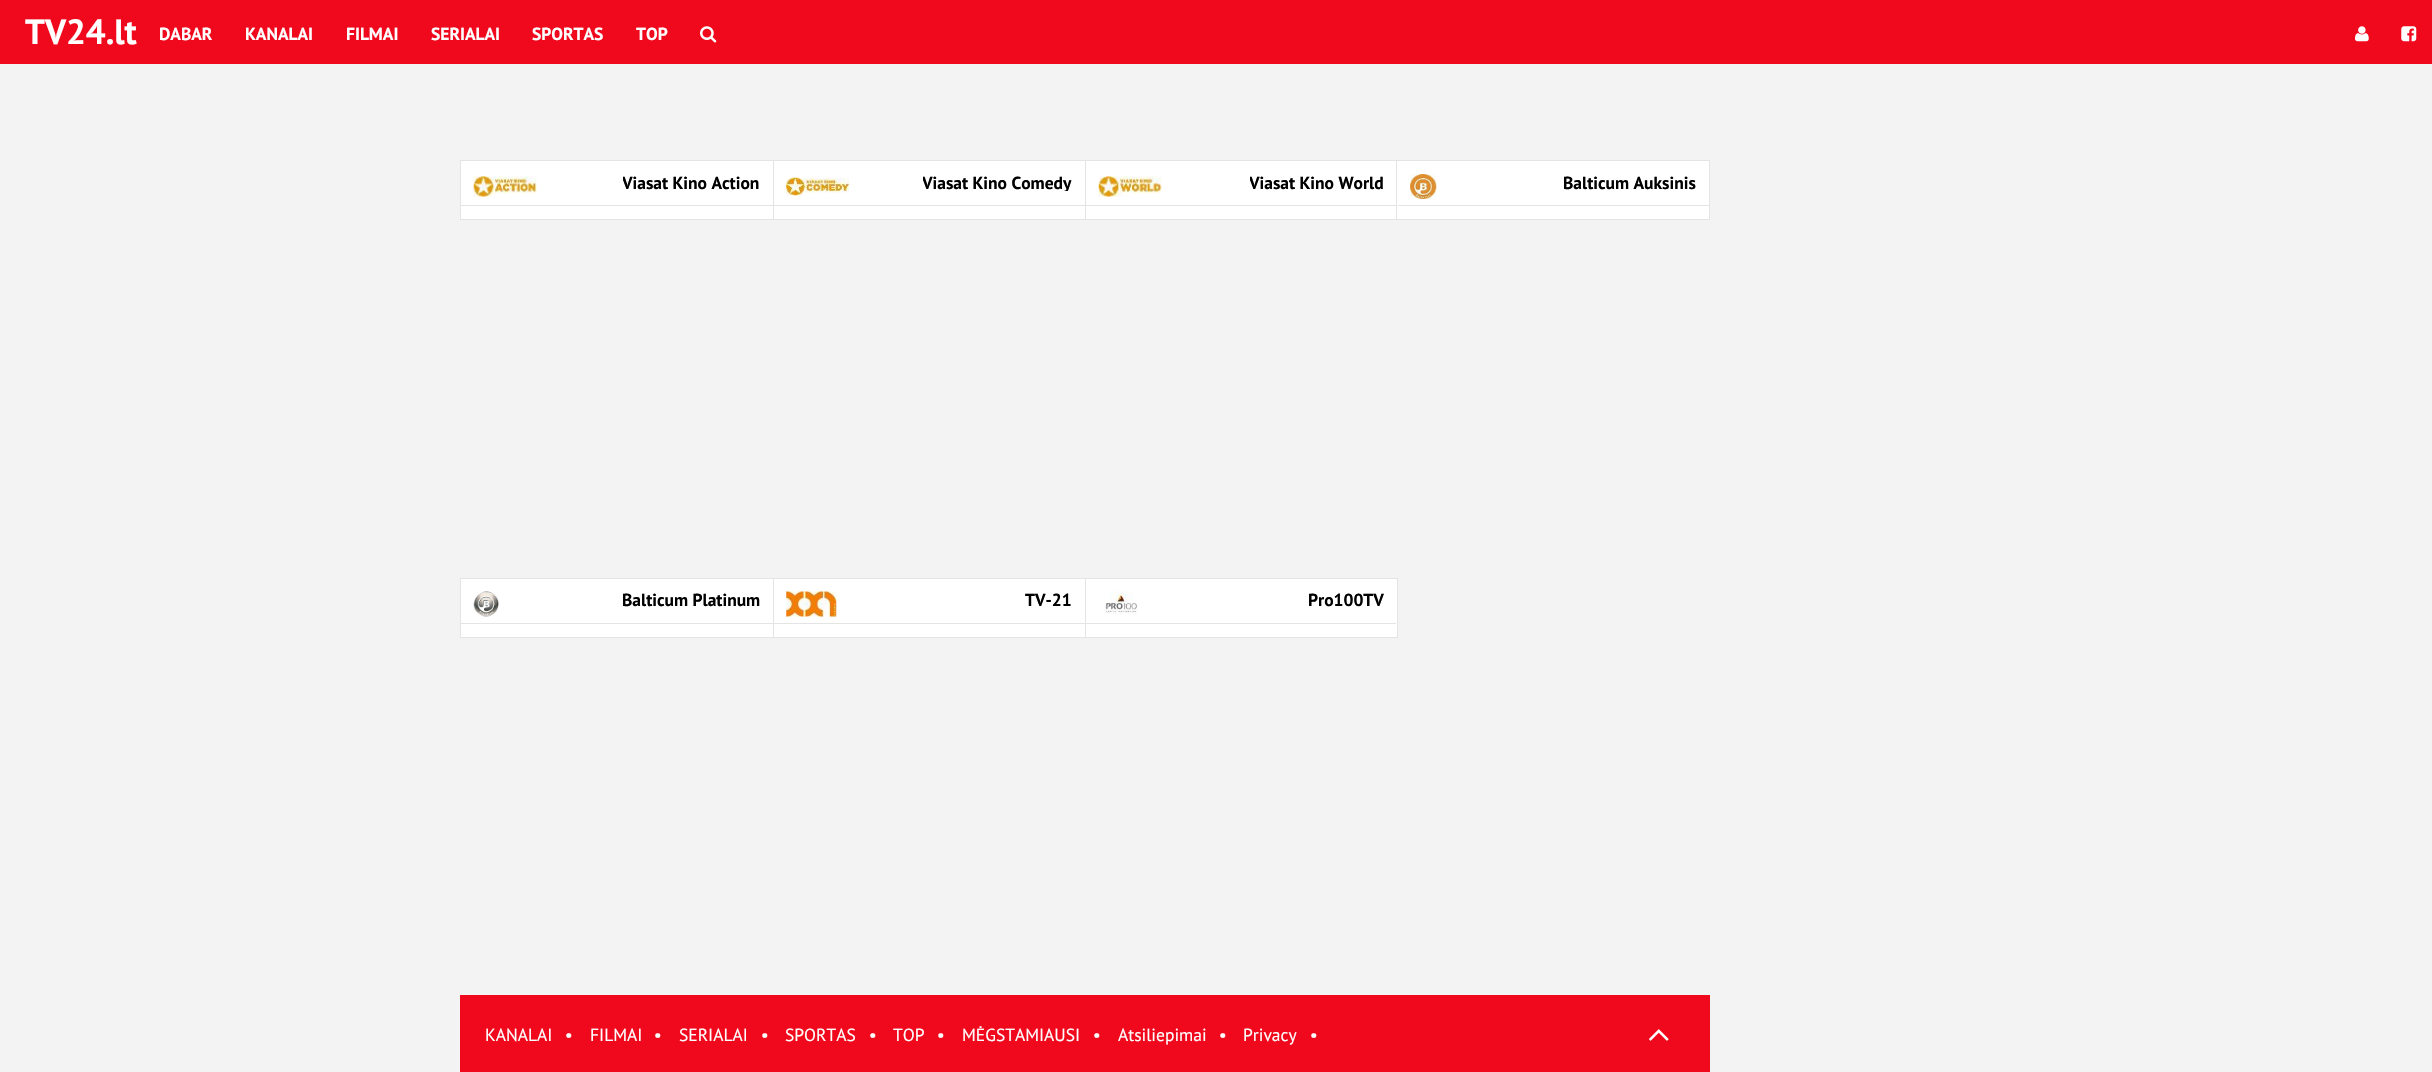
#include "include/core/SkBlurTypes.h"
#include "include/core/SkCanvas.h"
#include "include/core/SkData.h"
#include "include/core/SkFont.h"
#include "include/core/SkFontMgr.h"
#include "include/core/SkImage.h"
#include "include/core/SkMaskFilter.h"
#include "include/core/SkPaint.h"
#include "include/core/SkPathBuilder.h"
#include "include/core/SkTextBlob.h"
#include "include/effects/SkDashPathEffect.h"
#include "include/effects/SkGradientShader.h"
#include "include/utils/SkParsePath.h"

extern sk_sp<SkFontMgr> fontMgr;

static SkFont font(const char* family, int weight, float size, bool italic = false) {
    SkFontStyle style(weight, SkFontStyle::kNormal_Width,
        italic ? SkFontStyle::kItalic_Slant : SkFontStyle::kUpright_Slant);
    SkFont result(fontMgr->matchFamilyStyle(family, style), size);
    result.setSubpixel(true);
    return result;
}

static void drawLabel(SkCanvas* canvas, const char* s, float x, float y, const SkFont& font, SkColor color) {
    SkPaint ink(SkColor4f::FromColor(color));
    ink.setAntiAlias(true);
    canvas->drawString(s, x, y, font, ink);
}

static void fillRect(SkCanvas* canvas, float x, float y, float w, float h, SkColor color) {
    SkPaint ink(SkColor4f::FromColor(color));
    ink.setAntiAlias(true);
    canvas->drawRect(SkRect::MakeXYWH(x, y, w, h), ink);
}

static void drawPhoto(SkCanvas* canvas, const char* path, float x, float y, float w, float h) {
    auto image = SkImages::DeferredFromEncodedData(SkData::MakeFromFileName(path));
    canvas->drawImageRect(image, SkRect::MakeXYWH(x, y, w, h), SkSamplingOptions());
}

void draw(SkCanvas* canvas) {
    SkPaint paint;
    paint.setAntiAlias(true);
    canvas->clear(0xFFF3F3F3);
    fillRect(canvas, 0, 0, 2432, 64, 0xFFF0081C);
    SkFont font1 = font("PT Sans", 700, 35);
    drawLabel(canvas, "TV24.lt", 25, 44, font1, 0xFFFFFFFF);
    SkFont font2 = font("PT Sans", 700, 17.5f);
    drawLabel(canvas, "DABAR", 159, 40, font2, 0xFFFFFFFF);
    drawLabel(canvas, "KANALAI", 245, 40, font2, 0xFFFFFFFF);
    drawLabel(canvas, "FILMAI", 346, 40, font2, 0xFFFFFFFF);
    drawLabel(canvas, "SERIALAI", 431, 40, font2, 0xFFFFFFFF);
    drawLabel(canvas, "SPORTAS", 532, 40, font2, 0xFFFFFFFF);
    drawLabel(canvas, "TOP", 636, 40, font2, 0xFFFFFFFF);
    drawPhoto(canvas, "assets/img1.png", 700, 26, 17, 17);
    drawPhoto(canvas, "assets/img2.png", 2355, 26, 14, 16);
    drawPhoto(canvas, "assets/img3.png", 2401, 26, 16, 16);
    paint.setColor(0xFFFFFFFF);
    canvas->drawRect(SkRect::MakeXYWH(460.5f, 160.5f, 313, 59), paint);
    paint.setStroke(true);
    paint.setStrokeWidth(1);
    paint.setColor(0xFFE4E4E4);
    canvas->drawRect(SkRect::MakeXYWH(460.5f, 160.5f, 313, 59), paint);
    drawPhoto(canvas, "assets/img4.png", 473, 176, 64, 21);
    canvas->save();
    canvas->clipRect(SkRect::MakeXYWH(623, 174, 137, 17));
    drawLabel(canvas, "Viasat Kino Action", 622, 189, font2, 0xFF000000);
    canvas->restore();
    fillRect(canvas, 461, 205, 312, 1, 0xFFE4E4E4);
    paint.setStroke(false);
    paint.setColor(0xFFFFFFFF);
    canvas->drawRect(SkRect::MakeXYWH(773.5f, 160.5f, 312, 59), paint);
    paint.setStroke(true);
    paint.setColor(0xFFE4E4E4);
    canvas->drawRect(SkRect::MakeXYWH(773.5f, 160.5f, 312, 59), paint);
    drawPhoto(canvas, "assets/img5.png", 786, 177, 63, 19);
    canvas->save();
    canvas->clipRect(SkRect::MakeXYWH(923, 174, 150, 17));
    drawLabel(canvas, "Viasat Kino Comedy", 922, 189, font2, 0xFF000000);
    canvas->restore();
    fillRect(canvas, 774, 205, 311, 1, 0xFFE4E4E4);
    fillRect(canvas, 1086, 161, 310, 58, 0xFFFFFFFF);
    canvas->drawRect(SkRect::MakeXYWH(1085.5f, 160.5f, 312, 59), paint);
    drawPhoto(canvas, "assets/img6.png", 1098, 176, 64, 21);
    canvas->save();
    canvas->clipRect(SkRect::MakeXYWH(1250, 174, 134, 17));
    drawLabel(canvas, "Viasat Kino World", 1249, 189, font2, 0xFF000000);
    canvas->restore();
    fillRect(canvas, 1086, 205, 310, 1, 0xFFE4E4E4);
    paint.setStroke(false);
    paint.setColor(0xFFFFFFFF);
    canvas->drawRect(SkRect::MakeXYWH(1396.5f, 160.5f, 313, 59), paint);
    paint.setStroke(true);
    paint.setColor(0xFFE4E4E4);
    canvas->drawRect(SkRect::MakeXYWH(1396.5f, 160.5f, 313, 59), paint);
    drawPhoto(canvas, "assets/img7.png", 1410, 174, 27, 25);
    drawLabel(canvas, "Balticum Auksinis", 1563, 189, font2, 0xFF000000);
    fillRect(canvas, 1398, 205, 311, 1, 0xFFE4E4E4);
    paint.setStroke(false);
    paint.setColor(0xFFFFFFFF);
    canvas->drawRect(SkRect::MakeXYWH(460.5f, 578.5f, 313, 59), paint);
    paint.setStroke(true);
    paint.setColor(0xFFE4E4E4);
    canvas->drawRect(SkRect::MakeXYWH(460.5f, 578.5f, 313, 59), paint);
    drawPhoto(canvas, "assets/img8.png", 473, 591, 26, 26);
    drawLabel(canvas, "Balticum Platinum", 622, 606, font2, 0xFF000000);
    fillRect(canvas, 461, 623, 312, 1, 0xFFE4E4E4);
    paint.setStroke(false);
    paint.setColor(0xFFFFFFFF);
    canvas->drawRect(SkRect::MakeXYWH(773.5f, 578.5f, 312, 59), paint);
    paint.setStroke(true);
    paint.setColor(0xFFE4E4E4);
    canvas->drawRect(SkRect::MakeXYWH(773.5f, 578.5f, 312, 59), paint);
    drawPhoto(canvas, "assets/img9.png", 786, 591, 51, 26);
    drawLabel(canvas, "TV-21", 1025, 606, font2, 0xFF000000);
    fillRect(canvas, 774, 623, 311, 1, 0xFFE4E4E4);
    paint.setStroke(false);
    paint.setColor(0xFFFFFFFF);
    canvas->drawRect(SkRect::MakeXYWH(1085.5f, 578.5f, 312, 59), paint);
    paint.setStroke(true);
    paint.setColor(0xFFE4E4E4);
    canvas->drawRect(SkRect::MakeXYWH(1085.5f, 578.5f, 312, 59), paint);
    drawPhoto(canvas, "assets/img10.png", 1104, 591, 34, 24);
    drawLabel(canvas, "Pro100TV", 1308, 606, font2, 0xFF000000);
    fillRect(canvas, 1086, 623, 310, 1, 0xFFE4E4E4);
    fillRect(canvas, 460, 995, 1250, 77, 0xFFF0081C);
    SkFont font3 = font("PT Sans", 400, 17.5f);
    drawLabel(canvas, "KANALAI", 485, 1041, font3, 0xFFFFFFFF);
    SkFont font4 = font("PT Sans", 700, 30);
    drawLabel(canvas, "·", 565, 1045, font4, 0xFFFFFFFF);
    drawLabel(canvas, "FILMAI", 590, 1041, font3, 0xFFFFFFFF);
    drawLabel(canvas, "·", 654, 1045, font4, 0xFFFFFFFF);
    drawLabel(canvas, "SERIALAI", 679, 1041, font3, 0xFFFFFFFF);
    drawLabel(canvas, "·", 761, 1045, font4, 0xFFFFFFFF);
    drawLabel(canvas, "SPORTAS", 785, 1041, font3, 0xFFFFFFFF);
    drawLabel(canvas, "·", 869, 1045, font4, 0xFFFFFFFF);
    drawLabel(canvas, "TOP", 893, 1041, font3, 0xFFFFFFFF);
    drawLabel(canvas, "·", 937, 1045, font4, 0xFFFFFFFF);
    drawLabel(canvas, "MĖGSTAMIAUSI", 962, 1041, font3, 0xFFFFFFFF);
    drawLabel(canvas, "·", 1093, 1045, font4, 0xFFFFFFFF);
    drawLabel(canvas, "Atsiliepimai", 1118, 1041, font3, 0xFFFFFFFF);
    drawLabel(canvas, "·", 1219, 1045, font4, 0xFFFFFFFF);
    drawLabel(canvas, "Privacy", 1243, 1041, font3, 0xFFFFFFFF);
    drawLabel(canvas, "·", 1310, 1045, font4, 0xFFFFFFFF);
    drawPhoto(canvas, "assets/img11.png", 1649, 1029, 20, 12);
}
